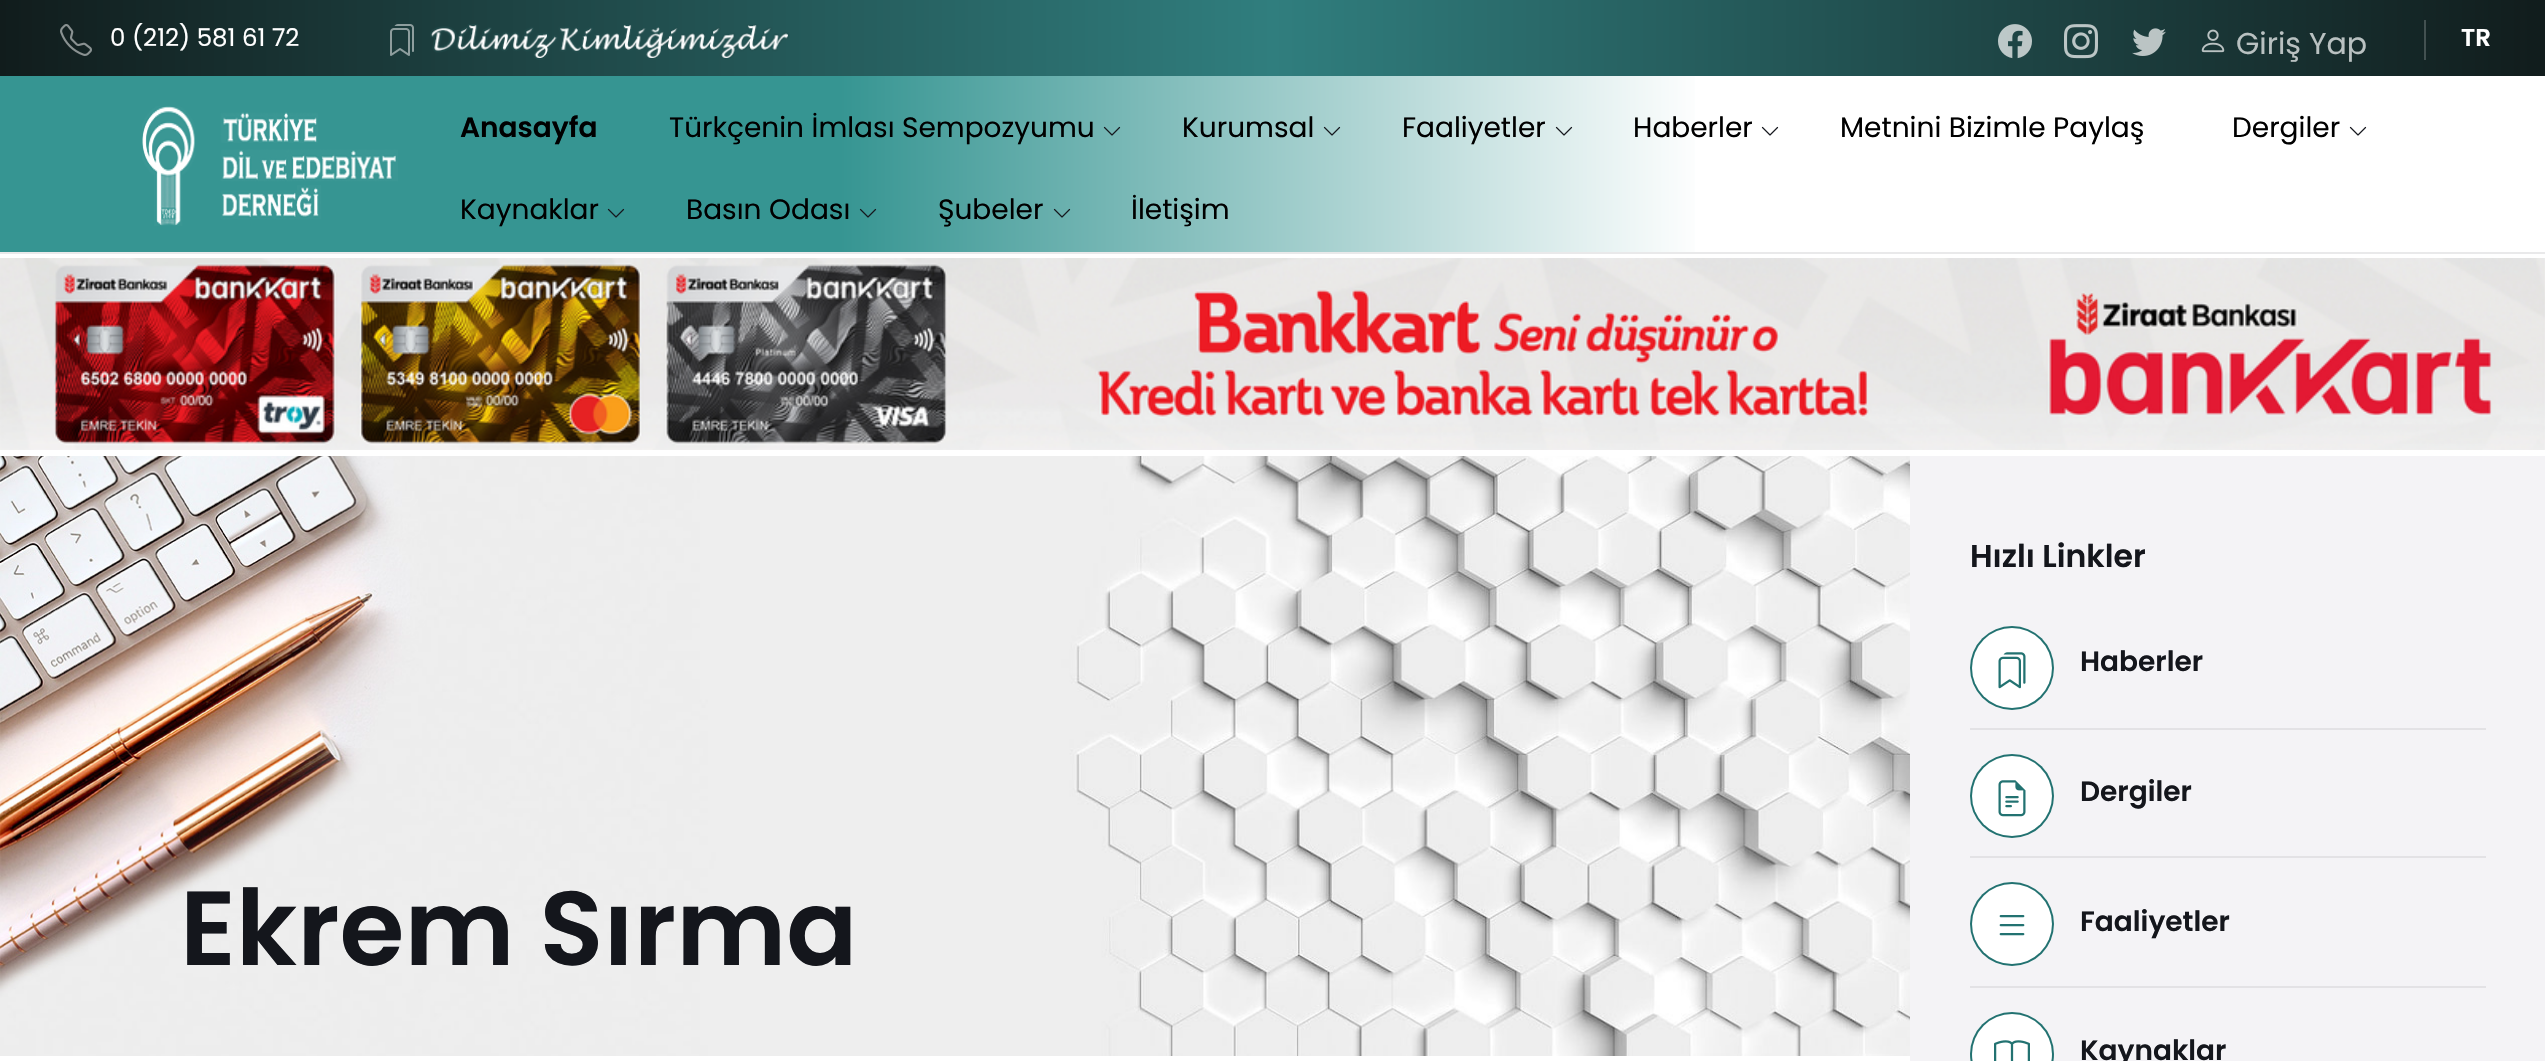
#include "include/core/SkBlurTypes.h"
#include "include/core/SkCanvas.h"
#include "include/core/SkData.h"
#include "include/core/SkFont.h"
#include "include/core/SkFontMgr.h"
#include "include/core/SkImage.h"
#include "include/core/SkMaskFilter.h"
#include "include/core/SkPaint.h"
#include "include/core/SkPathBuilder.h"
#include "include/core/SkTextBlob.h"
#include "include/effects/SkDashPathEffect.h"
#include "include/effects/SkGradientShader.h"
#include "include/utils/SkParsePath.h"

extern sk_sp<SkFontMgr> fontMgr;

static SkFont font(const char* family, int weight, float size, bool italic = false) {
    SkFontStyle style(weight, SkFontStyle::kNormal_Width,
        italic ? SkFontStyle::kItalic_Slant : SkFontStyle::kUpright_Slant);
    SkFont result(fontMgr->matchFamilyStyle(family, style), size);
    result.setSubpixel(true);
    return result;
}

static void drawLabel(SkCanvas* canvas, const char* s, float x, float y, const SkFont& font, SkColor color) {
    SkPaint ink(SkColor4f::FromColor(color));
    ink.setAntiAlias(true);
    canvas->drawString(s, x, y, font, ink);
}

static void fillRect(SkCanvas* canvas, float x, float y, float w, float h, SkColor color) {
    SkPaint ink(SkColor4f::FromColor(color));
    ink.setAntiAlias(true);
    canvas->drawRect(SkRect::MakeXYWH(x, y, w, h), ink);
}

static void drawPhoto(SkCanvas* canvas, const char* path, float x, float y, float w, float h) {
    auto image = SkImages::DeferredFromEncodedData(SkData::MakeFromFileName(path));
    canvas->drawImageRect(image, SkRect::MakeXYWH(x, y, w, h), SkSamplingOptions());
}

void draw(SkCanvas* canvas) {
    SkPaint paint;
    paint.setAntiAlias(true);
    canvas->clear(0xFFFFFFFF);
    fillRect(canvas, 0, 252, 2545, 2, 0xFFE9E9EA);
    {
        const SkColor colors[] = {0xFF111C1C, 0xFF307E7E, 0xFF111C1C};
        const float stops[] = {0, 0.5f, 1};
        const SkPoint ends[] = {{0, 38}, {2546, 38}};
        paint.setShader(SkGradientShader::MakeLinear(ends, colors, stops, 3, SkTileMode::kClamp));
        paint.setAlpha(255);
    }
    canvas->drawRect(SkRect::MakeXYWH(0, 0, 2545, 76), paint);
    drawPhoto(canvas, "assets/img1.png", 60, 24, 32, 32);
    SkFont font1 = font("Poppins", 400, 24.5f);
    drawLabel(canvas, "0 (212) 581 61 72", 110, 46, font1, 0xFFFFFFFF);
    drawPhoto(canvas, "assets/img2.png", 390, 24, 24, 32);
    drawPhoto(canvas, "assets/img3.png", 430, 24, 360, 36);
    drawPhoto(canvas, "assets/img4.png", 1998, 24, 34, 35);
    drawPhoto(canvas, "assets/img5.png", 2064, 24, 34, 35);
    drawPhoto(canvas, "assets/img6.png", 2132, 28, 34, 28);
    drawPhoto(canvas, "assets/img7.png", 2201, 29, 24, 24);
    SkFont font2 = font("Poppins", 400, 30);
    drawLabel(canvas, "Giriş Yap", 2236, 54, font2, 0xFFB9C1C1);
    fillRect(canvas, 2424, 20, 2, 40, 0xFF435151);
    SkFont font3 = font("Poppins", 600, 24.5f);
    drawLabel(canvas, "TR", 2461, 46, font3, 0xFFFFFFFF);
    {
        const SkColor colors[] = {0xFF369592, 0xFF369592, 0xFFFFFFFF, 0xFFFFFFFF};
        const float stops[] = {0, 0.33f, 0.67f, 1};
        const SkPoint ends[] = {{0, 164}, {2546, 164}};
        paint.setShader(SkGradientShader::MakeLinear(ends, colors, stops, 4, SkTileMode::kClamp));
        paint.setAlpha(255);
    }
    canvas->drawRect(SkRect::MakeXYWH(0, 76, 1695, 176), paint);
    drawPhoto(canvas, "assets/img8.png", 142, 106, 256, 120);
    SkFont font4 = font("Poppins", 600, 28);
    drawLabel(canvas, "Anasayfa", 460, 137, font4, 0xFF000000);
    SkFont font5 = font("Poppins", 400, 28);
    drawLabel(canvas, "Türkçenin İmlası Sempozyumu", 669, 137, font5, 0xFF000000);
    drawPhoto(canvas, "assets/img9.png", 1103, 126, 18, 10);
    drawLabel(canvas, "Kurumsal", 1182, 137, font5, 0xFF000000);
    drawPhoto(canvas, "assets/img10.png", 1323, 126, 18, 10);
    drawLabel(canvas, "Faaliyetler", 1402, 137, font5, 0xFF000000);
    drawPhoto(canvas, "assets/img11.png", 1555, 126, 18, 10);
    drawLabel(canvas, "Haberler", 1633, 137, font5, 0xFF000000);
    drawPhoto(canvas, "assets/img12.png", 1761, 126, 18, 10);
    drawLabel(canvas, "Metnini Bizimle Paylaş", 1840, 137, font5, 0xFF000000);
    drawLabel(canvas, "Dergiler", 2232, 137, font5, 0xFF000000);
    drawPhoto(canvas, "assets/img12.png", 2349, 126, 18, 10);
    drawLabel(canvas, "Kaynaklar", 460, 219, font5, 0xFF000000);
    drawPhoto(canvas, "assets/img13.png", 607, 208, 18, 10);
    drawLabel(canvas, "Basın Odası", 686, 219, font5, 0xFF000000);
    drawPhoto(canvas, "assets/img14.png", 859, 208, 18, 10);
    drawLabel(canvas, "Şubeler", 938, 219, font5, 0xFF000000);
    drawPhoto(canvas, "assets/img15.png", 1053, 208, 18, 10);
    drawLabel(canvas, "İletişim", 1131, 219, font5, 0xFF000000);
    drawPhoto(canvas, "assets/img16.png", 0, 258, 2545, 192);
    drawPhoto(canvas, "assets/img17.png", 0, 456, 1910, 600);
    SkFont font6 = font("Poppins", 600, 105);
    drawLabel(canvas, "Ekrem Sırma", 180, 965, font6, 0xFF14161C);
    fillRect(canvas, 1910, 456, 635, 605, 0xFFF4F3F6);
    SkFont font7 = font("Poppins", 600, 31.5f);
    drawLabel(canvas, "Hızlı Linkler", 1970, 567, font7, 0xFF14161C);
    paint.setShader(nullptr);
    paint.setColor(0xFF227271);
    canvas->drawCircle(2012, 668, 42, paint);
    paint.setColor(0xFFFFFFFF);
    canvas->drawCircle(2012, 668, 40, paint);
    drawPhoto(canvas, "assets/img18.png", 1998, 652, 28, 37);
    drawLabel(canvas, "Haberler", 2080, 671, font4, 0xFF14161C);
    fillRect(canvas, 1970, 728, 516, 2, 0xFFE3E2E5);
    paint.setColor(0xFF227271);
    canvas->drawCircle(2012, 796, 42, paint);
    paint.setColor(0xFFFFFFFF);
    canvas->drawCircle(2012, 796, 40, paint);
    drawPhoto(canvas, "assets/img19.png", 1998, 780, 28, 37);
    drawLabel(canvas, "Dergiler", 2080, 801, font4, 0xFF14161C);
    fillRect(canvas, 1970, 856, 516, 2, 0xFFE3E2E5);
    paint.setColor(0xFF227271);
    canvas->drawCircle(2012, 924, 42, paint);
    paint.setColor(0xFFFFFFFF);
    canvas->drawCircle(2012, 924, 40, paint);
    drawPhoto(canvas, "assets/img20.png", 1999, 915, 26, 21);
    drawLabel(canvas, "Faaliyetler", 2080, 931, font4, 0xFF14161C);
    fillRect(canvas, 1970, 986, 516, 2, 0xFFE3E2E5);
    paint.setColor(0xFF227271);
    canvas->drawCircle(2012, 1054, 42, paint);
    paint.setColor(0xFFFFFFFF);
    canvas->drawCircle(2012, 1054, 40, paint);
    drawPhoto(canvas, "assets/img21.png", 1994, 1040, 36, 21);
    drawLabel(canvas, "Kaynaklar", 2080, 1060, font4, 0xFF14161C);
}
